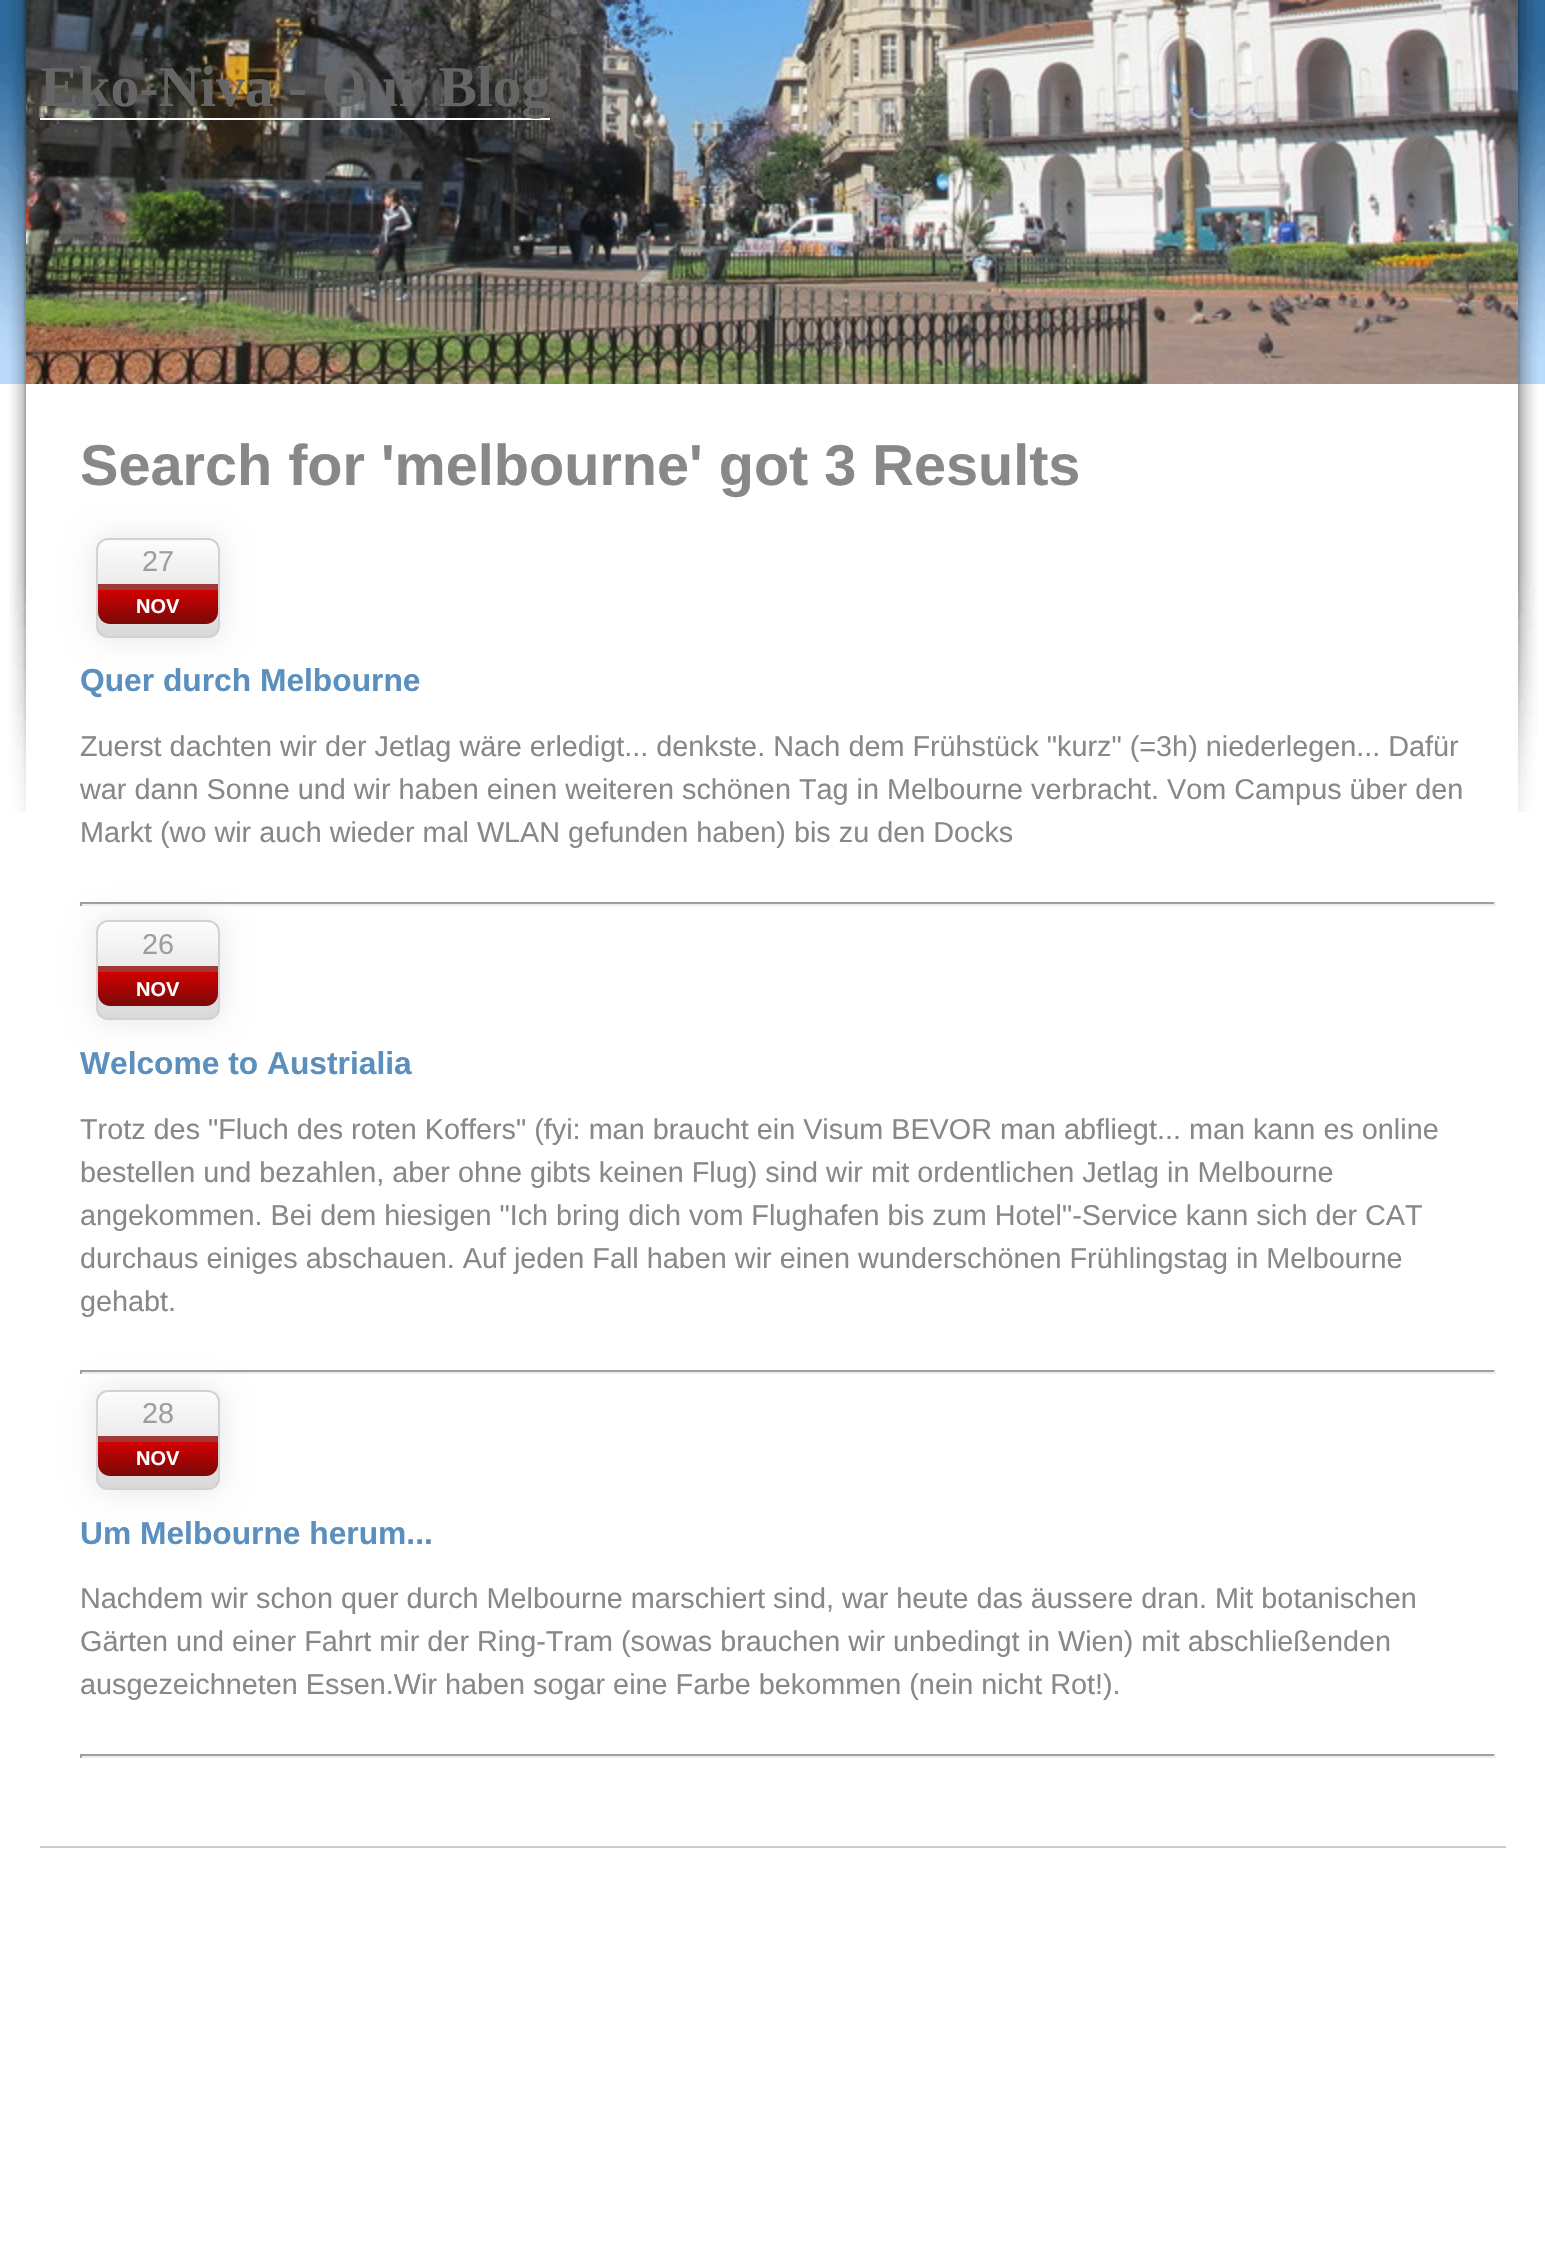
#include "include/core/SkBlurTypes.h"
#include "include/core/SkCanvas.h"
#include "include/core/SkData.h"
#include "include/core/SkFont.h"
#include "include/core/SkFontMgr.h"
#include "include/core/SkImage.h"
#include "include/core/SkMaskFilter.h"
#include "include/core/SkPaint.h"
#include "include/core/SkPathBuilder.h"
#include "include/core/SkTextBlob.h"
#include "include/effects/SkDashPathEffect.h"
#include "include/effects/SkGradientShader.h"
#include "include/utils/SkParsePath.h"

extern sk_sp<SkFontMgr> fontMgr;

static SkFont font(const char* family, int weight, float size, bool italic = false) {
    SkFontStyle style(weight, SkFontStyle::kNormal_Width,
        italic ? SkFontStyle::kItalic_Slant : SkFontStyle::kUpright_Slant);
    SkFont result(fontMgr->matchFamilyStyle(family, style), size);
    result.setSubpixel(true);
    return result;
}

static void drawLabel(SkCanvas* canvas, const char* s, float x, float y, const SkFont& font, SkColor color) {
    SkPaint ink(SkColor4f::FromColor(color));
    ink.setAntiAlias(true);
    canvas->drawString(s, x, y, font, ink);
}

static void fillRect(SkCanvas* canvas, float x, float y, float w, float h, SkColor color) {
    SkPaint ink(SkColor4f::FromColor(color));
    ink.setAntiAlias(true);
    canvas->drawRect(SkRect::MakeXYWH(x, y, w, h), ink);
}

static void drawPhoto(SkCanvas* canvas, const char* path, float x, float y, float w, float h) {
    auto image = SkImages::DeferredFromEncodedData(SkData::MakeFromFileName(path));
    canvas->drawImageRect(image, SkRect::MakeXYWH(x, y, w, h), SkSamplingOptions());
}

static SkPath parsePath(const char* data, bool evenOdd = false) {
    SkPath result = *SkParsePath::FromSVGString(data);
    if (evenOdd) result.setFillType(SkPathFillType::kEvenOdd);
    return result;
}

void draw(SkCanvas* canvas) {
    SkPaint paint;
    paint.setAntiAlias(true);
    canvas->clear(0xFFFFFFFF);
    drawPhoto(canvas, "assets/img1.png", 26, 0, 1492, 384);
    drawPhoto(canvas, "assets/img2.png", 0, 0, 26, 384);
    drawPhoto(canvas, "assets/img3.png", 1518, 0, 27, 384);
    fillRect(canvas, 40, 118, 510, 2, 0xFFFFFFFF);
    SkFont font1 = font("Liberation Serif", 700, 57.6f);
    drawLabel(canvas, "Eko-Niva - Our Blog", 40, 106, font1, 0xFF666666);
    drawPhoto(canvas, "assets/img4.png", 9, 384, 17, 428);
    drawPhoto(canvas, "assets/img5.png", 1518, 384, 20, 428);
    paint.setColor(0x1A000000);
    paint.setMaskFilter(SkMaskFilter::MakeBlur(kNormal_SkBlurStyle, 15));
    canvas->drawRoundRect(SkRect::MakeXYWH(96, 538, 124, 100), 12, 12, paint);
    paint.setMaskFilter(nullptr);
    SkFont font2 = font("Liberation Sans", 700, 57.6f);
    drawLabel(canvas, "Search for 'melbourne' got 3 Results", 80, 485, font2, 0xFF888888);
    canvas->save();
    canvas->clipPath(parsePath("M108 538H208C214.5 538 220 543.5 220 550V626C220 632.5 214.5 638 208 638H108C101.5 638 96 632.5 96 626V550C96 543.5 101.5 538 108 538Z"), true);
    {
        const SkColor colors[] = {0xFFFCFCFC, 0xFFDAD8D8};
        const float stops[] = {0, 1};
        const SkPoint ends[] = {{158, 540}, {158, 636}};
        paint.setShader(SkGradientShader::MakeLinear(ends, colors, stops, 2, SkTileMode::kClamp));
        paint.setAlpha(255);
    }
    canvas->drawRect(SkRect::MakeXYWH(96, 540, 124, 96), paint);
    canvas->restore();
    paint.setStroke(true);
    paint.setStrokeWidth(2);
    paint.setShader(nullptr);
    paint.setColor(0xFFD2D2D2);
    canvas->drawRoundRect(SkRect::MakeXYWH(97, 539, 122, 98), 11, 11, paint);
    SkFont font3 = font("Liberation Sans", 400, 28.8f);
    drawLabel(canvas, "27", 142, 571, font3, 0xFF9E9E9E);
    paint.setStroke(false);
    {
        const SkColor colors[] = {0xFFD10000, 0xFF7A0909};
        const float stops[] = {0, 1};
        const SkPoint ends[] = {{158, 590}, {158, 624}};
        paint.setShader(SkGradientShader::MakeLinear(ends, colors, stops, 2, SkTileMode::kClamp));
        paint.setAlpha(255);
    }
    canvas->drawPath(parsePath("M98 590H218V612C218 618.5 212.5 624 206 624H110C103.5 624 98 618.5 98 612Z"), paint);
    fillRect(canvas, 98, 584, 120, 6, 0xFFA13838);
    SkFont font4 = font("Liberation Sans", 700, 20);
    drawLabel(canvas, "NOV", 136, 613, font4, 0xFFFFFFFF);
    SkFont font5 = font("Liberation Sans", 700, 31.75f);
    drawLabel(canvas, "Quer durch Melbourne", 80, 691, font5, 0xFF5B8FBE);
    drawLabel(canvas, "Zuerst dachten wir der Jetlag wäre erledigt... denkste. Nach dem Frühstück \"kurz\" (=3h) niederlegen... Dafür", 80, 756, font3, 0xFF888888);
    drawLabel(canvas, "war dann Sonne und wir haben einen weiteren schönen Tag in Melbourne verbracht. Vom Campus über den", 80, 799, font3, 0xFF888888);
    drawLabel(canvas, "Markt (wo wir auch wieder mal WLAN gefunden haben) bis zu den Docks", 80, 842, font3, 0xFF888888);
    paint.setShader(nullptr);
    paint.setColor(0x1A000000);
    paint.setMaskFilter(SkMaskFilter::MakeBlur(kNormal_SkBlurStyle, 15));
    canvas->drawRoundRect(SkRect::MakeXYWH(96, 920, 124, 100), 12, 12, paint);
    paint.setMaskFilter(nullptr);
    fillRect(canvas, 80, 902, 1416, 2, 0xFF9F9F9F);
    fillRect(canvas, 1494, 902, 2, 4, 0xFFEEEEEE);
    fillRect(canvas, 80, 904, 1416, 2, 0xFFEEEEEE);
    fillRect(canvas, 80, 902, 2, 4, 0xFF9F9F9F);
    canvas->save();
    canvas->clipPath(parsePath("M108 920H208C214.5 920 220 925.5 220 932V1008C220 1014.5 214.5 1020 208 1020H108C101.5 1020 96 1014.5 96 1008V932C96 925.5 101.5 920 108 920Z"), true);
    {
        const SkColor colors[] = {0xFFFCFCFC, 0xFFDAD8D8};
        const float stops[] = {0, 1};
        const SkPoint ends[] = {{158, 922}, {158, 1018}};
        paint.setShader(SkGradientShader::MakeLinear(ends, colors, stops, 2, SkTileMode::kClamp));
        paint.setAlpha(255);
    }
    canvas->drawRect(SkRect::MakeXYWH(96, 922, 124, 96), paint);
    canvas->restore();
    paint.setStroke(true);
    paint.setShader(nullptr);
    paint.setColor(0xFFD2D2D2);
    canvas->drawRoundRect(SkRect::MakeXYWH(97, 921, 122, 98), 11, 11, paint);
    drawLabel(canvas, "26", 142, 954, font3, 0xFF9E9E9E);
    paint.setStroke(false);
    {
        const SkColor colors[] = {0xFFD10000, 0xFF7A0909};
        const float stops[] = {0, 1};
        const SkPoint ends[] = {{158, 972}, {158, 1006}};
        paint.setShader(SkGradientShader::MakeLinear(ends, colors, stops, 2, SkTileMode::kClamp));
        paint.setAlpha(255);
    }
    canvas->drawPath(parsePath("M98 972H218V994C218 1000.5 212.5 1006 206 1006H110C103.5 1006 98 1000.5 98 994Z"), paint);
    fillRect(canvas, 98, 966, 120, 6, 0xFFA13838);
    drawLabel(canvas, "NOV", 136, 996, font4, 0xFFFFFFFF);
    drawLabel(canvas, "Welcome to Austrialia", 80, 1074, font5, 0xFF5B8FBE);
    drawLabel(canvas, "Trotz des \"Fluch des roten Koffers\" (fyi: man braucht ein Visum BEVOR man abfliegt... man kann es online", 80, 1139, font3, 0xFF888888);
    drawLabel(canvas, "bestellen und bezahlen, aber ohne gibts keinen Flug) sind wir mit ordentlichen Jetlag in Melbourne", 80, 1182, font3, 0xFF888888);
    drawLabel(canvas, "angekommen. Bei dem hiesigen \"Ich bring dich vom Flughafen bis zum Hotel\"-Service kann sich der CAT", 80, 1225, font3, 0xFF888888);
    drawLabel(canvas, "durchaus einiges abschauen. Auf jeden Fall haben wir einen wunderschönen Frühlingstag in Melbourne", 80, 1268, font3, 0xFF888888);
    drawLabel(canvas, "gehabt.", 80, 1311, font3, 0xFF888888);
    paint.setShader(nullptr);
    paint.setColor(0x1A000000);
    paint.setMaskFilter(SkMaskFilter::MakeBlur(kNormal_SkBlurStyle, 15));
    canvas->drawRoundRect(SkRect::MakeXYWH(96, 1390, 124, 100), 12, 12, paint);
    paint.setMaskFilter(nullptr);
    fillRect(canvas, 80, 1370, 1416, 2, 0xFF9F9F9F);
    fillRect(canvas, 1494, 1370, 2, 4, 0xFFEEEEEE);
    fillRect(canvas, 80, 1372, 1416, 2, 0xFFEEEEEE);
    fillRect(canvas, 80, 1370, 2, 4, 0xFF9F9F9F);
    canvas->save();
    canvas->clipPath(parsePath("M108 1390H208C214.5 1390 220 1395.5 220 1402V1478C220 1484.5 214.5 1490 208 1490H108C101.5 1490 96 1484.5 96 1478V1402C96 1395.5 101.5 1390 108 1390Z"), true);
    {
        const SkColor colors[] = {0xFFFCFCFC, 0xFFDAD8D8};
        const float stops[] = {0, 1};
        const SkPoint ends[] = {{158, 1392}, {158, 1488}};
        paint.setShader(SkGradientShader::MakeLinear(ends, colors, stops, 2, SkTileMode::kClamp));
        paint.setAlpha(255);
    }
    canvas->drawRect(SkRect::MakeXYWH(96, 1392, 124, 96), paint);
    canvas->restore();
    paint.setStroke(true);
    paint.setShader(nullptr);
    paint.setColor(0xFFD2D2D2);
    canvas->drawRoundRect(SkRect::MakeXYWH(97, 1391, 122, 98), 11, 11, paint);
    drawLabel(canvas, "28", 142, 1423, font3, 0xFF9E9E9E);
    paint.setStroke(false);
    {
        const SkColor colors[] = {0xFFD10000, 0xFF7A0909};
        const float stops[] = {0, 1};
        const SkPoint ends[] = {{158, 1442}, {158, 1476}};
        paint.setShader(SkGradientShader::MakeLinear(ends, colors, stops, 2, SkTileMode::kClamp));
        paint.setAlpha(255);
    }
    canvas->drawPath(parsePath("M98 1442H218V1464C218 1470.5 212.5 1476 206 1476H110C103.5 1476 98 1470.5 98 1464Z"), paint);
    fillRect(canvas, 98, 1436, 120, 6, 0xFFA13838);
    drawLabel(canvas, "NOV", 136, 1465, font4, 0xFFFFFFFF);
    drawLabel(canvas, "Um Melbourne herum...", 80, 1544, font5, 0xFF5B8FBE);
    drawLabel(canvas, "Nachdem wir schon quer durch Melbourne marschiert sind, war heute das äussere dran. Mit botanischen", 80, 1608, font3, 0xFF888888);
    drawLabel(canvas, "Gärten und einer Fahrt mir der Ring-Tram (sowas brauchen wir unbedingt in Wien) mit abschließenden", 80, 1651, font3, 0xFF888888);
    drawLabel(canvas, "ausgezeichneten Essen.Wir haben sogar eine Farbe bekommen (nein nicht Rot!).", 80, 1694, font3, 0xFF888888);
    fillRect(canvas, 80, 1754, 1416, 2, 0xFF9F9F9F);
    fillRect(canvas, 1494, 1754, 2, 4, 0xFFEEEEEE);
    fillRect(canvas, 80, 1756, 1416, 2, 0xFFEEEEEE);
    fillRect(canvas, 80, 1754, 2, 4, 0xFF9F9F9F);
    fillRect(canvas, 40, 1846, 1466, 2, 0xFFCCCCCC);
}
